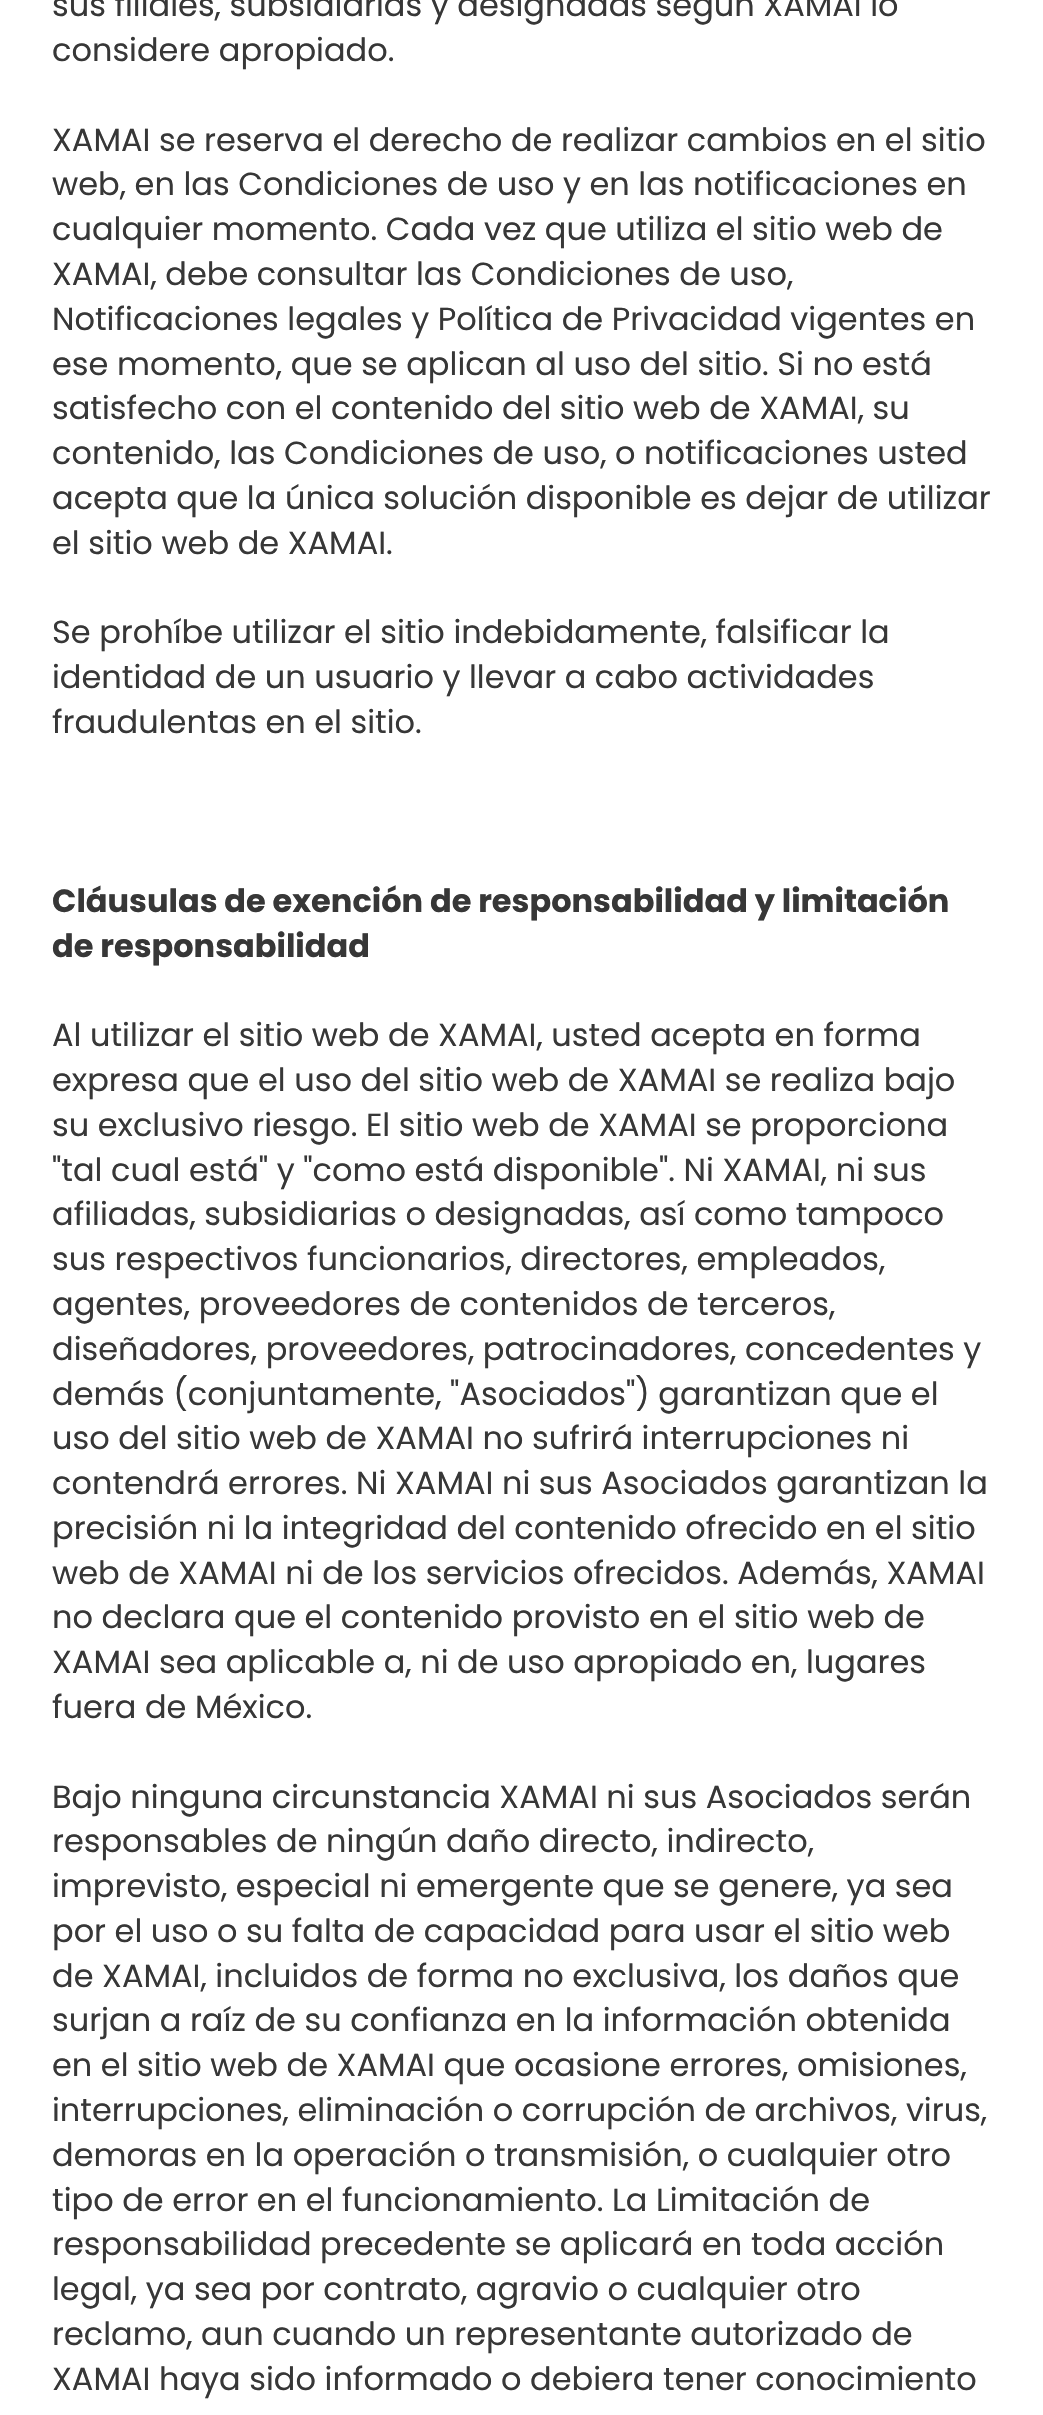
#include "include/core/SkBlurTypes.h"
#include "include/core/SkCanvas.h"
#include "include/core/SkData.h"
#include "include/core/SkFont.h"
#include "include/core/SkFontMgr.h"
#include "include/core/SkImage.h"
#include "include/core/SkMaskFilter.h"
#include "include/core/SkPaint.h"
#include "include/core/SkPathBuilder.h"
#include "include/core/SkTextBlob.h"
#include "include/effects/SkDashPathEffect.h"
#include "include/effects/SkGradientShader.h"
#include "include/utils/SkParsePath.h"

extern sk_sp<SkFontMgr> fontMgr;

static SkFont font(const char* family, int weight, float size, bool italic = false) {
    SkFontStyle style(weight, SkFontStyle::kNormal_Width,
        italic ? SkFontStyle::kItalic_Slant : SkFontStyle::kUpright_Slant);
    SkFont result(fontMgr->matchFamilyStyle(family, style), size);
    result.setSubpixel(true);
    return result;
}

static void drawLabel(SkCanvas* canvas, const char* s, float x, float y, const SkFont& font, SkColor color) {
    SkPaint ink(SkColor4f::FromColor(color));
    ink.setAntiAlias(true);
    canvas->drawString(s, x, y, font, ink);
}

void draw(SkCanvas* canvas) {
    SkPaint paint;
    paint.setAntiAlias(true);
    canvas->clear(0xFFFFFFFF);
    SkFont font1 = font("Poppins", 400, 32);
    drawLabel(canvas, "sus filiales, subsidiarias y designadas según XAMAI lo", 52, 16, font1, 0xFF373737);
    drawLabel(canvas, "considere apropiado.", 52, 61, font1, 0xFF373737);
    drawLabel(canvas, "XAMAI se reserva el derecho de realizar cambios en el sitio", 52, 151, font1, 0xFF373737);
    drawLabel(canvas, "web, en las Condiciones de uso y en las notificaciones en", 52, 195, font1, 0xFF373737);
    drawLabel(canvas, "cualquier momento. Cada vez que utiliza el sitio web de", 52, 240, font1, 0xFF373737);
    drawLabel(canvas, "XAMAI, debe consultar las Condiciones de uso,", 52, 285, font1, 0xFF373737);
    drawLabel(canvas, "Notificaciones legales y Política de Privacidad vigentes en", 52, 330, font1, 0xFF373737);
    drawLabel(canvas, "ese momento, que se aplican al uso del sitio. Si no está", 52, 375, font1, 0xFF373737);
    drawLabel(canvas, "satisfecho con el contenido del sitio web de XAMAI, su", 52, 419, font1, 0xFF373737);
    drawLabel(canvas, "contenido, las Condiciones de uso, o notificaciones usted", 52, 464, font1, 0xFF373737);
    drawLabel(canvas, "acepta que la única solución disponible es dejar de utilizar", 52, 509, font1, 0xFF373737);
    drawLabel(canvas, "el sitio web de XAMAI.", 52, 554, font1, 0xFF373737);
    drawLabel(canvas, "Se prohíbe utilizar el sitio indebidamente, falsificar la", 52, 643, font1, 0xFF373737);
    drawLabel(canvas, "identidad de un usuario y llevar a cabo actividades", 52, 688, font1, 0xFF373737);
    drawLabel(canvas, "fraudulentas en el sitio.", 52, 733, font1, 0xFF373737);
    SkFont font2 = font("Poppins", 700, 32);
    drawLabel(canvas, "Cláusulas de exención de responsabilidad y limitación", 52, 912, font2, 0xFF373737);
    drawLabel(canvas, "de responsabilidad", 52, 957, font2, 0xFF373737);
    drawLabel(canvas, "Al utilizar el sitio web de XAMAI, usted acepta en forma", 52, 1046, font1, 0xFF373737);
    drawLabel(canvas, "expresa que el uso del sitio web de XAMAI se realiza bajo", 52, 1091, font1, 0xFF373737);
    drawLabel(canvas, "su exclusivo riesgo. El sitio web de XAMAI se proporciona", 52, 1136, font1, 0xFF373737);
    drawLabel(canvas, "\"tal cual está\" y \"como está disponible\". Ni XAMAI, ni sus", 52, 1181, font1, 0xFF373737);
    drawLabel(canvas, "afiliadas, subsidiarias o designadas, así como tampoco", 52, 1225, font1, 0xFF373737);
    drawLabel(canvas, "sus respectivos funcionarios, directores, empleados,", 52, 1270, font1, 0xFF373737);
    drawLabel(canvas, "agentes, proveedores de contenidos de terceros,", 52, 1315, font1, 0xFF373737);
    drawLabel(canvas, "diseñadores, proveedores, patrocinadores, concedentes y", 52, 1360, font1, 0xFF373737);
    drawLabel(canvas, "demás (conjuntamente, \"Asociados\") garantizan que el", 52, 1405, font1, 0xFF373737);
    drawLabel(canvas, "uso del sitio web de XAMAI no sufrirá interrupciones ni", 52, 1449, font1, 0xFF373737);
    drawLabel(canvas, "contendrá errores. Ni XAMAI ni sus Asociados garantizan la", 52, 1494, font1, 0xFF373737);
    drawLabel(canvas, "precisión ni la integridad del contenido ofrecido en el sitio", 52, 1539, font1, 0xFF373737);
    drawLabel(canvas, "web de XAMAI ni de los servicios ofrecidos. Además, XAMAI", 52, 1584, font1, 0xFF373737);
    drawLabel(canvas, "no declara que el contenido provisto en el sitio web de", 52, 1628, font1, 0xFF373737);
    drawLabel(canvas, "XAMAI sea aplicable a, ni de uso apropiado en, lugares", 52, 1673, font1, 0xFF373737);
    drawLabel(canvas, "fuera de México.", 52, 1718, font1, 0xFF373737);
    drawLabel(canvas, "Bajo ninguna circunstancia XAMAI ni sus Asociados serán", 52, 1808, font1, 0xFF373737);
    drawLabel(canvas, "responsables de ningún daño directo, indirecto,", 52, 1852, font1, 0xFF373737);
    drawLabel(canvas, "imprevisto, especial ni emergente que se genere, ya sea", 52, 1897, font1, 0xFF373737);
    drawLabel(canvas, "por el uso o su falta de capacidad para usar el sitio web", 52, 1942, font1, 0xFF373737);
    drawLabel(canvas, "de XAMAI, incluidos de forma no exclusiva, los daños que", 52, 1987, font1, 0xFF373737);
    drawLabel(canvas, "surjan a raíz de su confianza en la información obtenida", 52, 2031, font1, 0xFF373737);
    drawLabel(canvas, "en el sitio web de XAMAI que ocasione errores, omisiones,", 52, 2076, font1, 0xFF373737);
    drawLabel(canvas, "interrupciones, eliminación o corrupción de archivos, virus,", 52, 2121, font1, 0xFF373737);
    drawLabel(canvas, "demoras en la operación o transmisión, o cualquier otro", 52, 2166, font1, 0xFF373737);
    drawLabel(canvas, "tipo de error en el funcionamiento. La Limitación de", 52, 2211, font1, 0xFF373737);
    drawLabel(canvas, "responsabilidad precedente se aplicará en toda acción", 52, 2255, font1, 0xFF373737);
    drawLabel(canvas, "legal, ya sea por contrato, agravio o cualquier otro", 52, 2300, font1, 0xFF373737);
    drawLabel(canvas, "reclamo, aun cuando un representante autorizado de", 52, 2345, font1, 0xFF373737);
    drawLabel(canvas, "XAMAI haya sido informado o debiera tener conocimiento", 52, 2390, font1, 0xFF373737);
}
